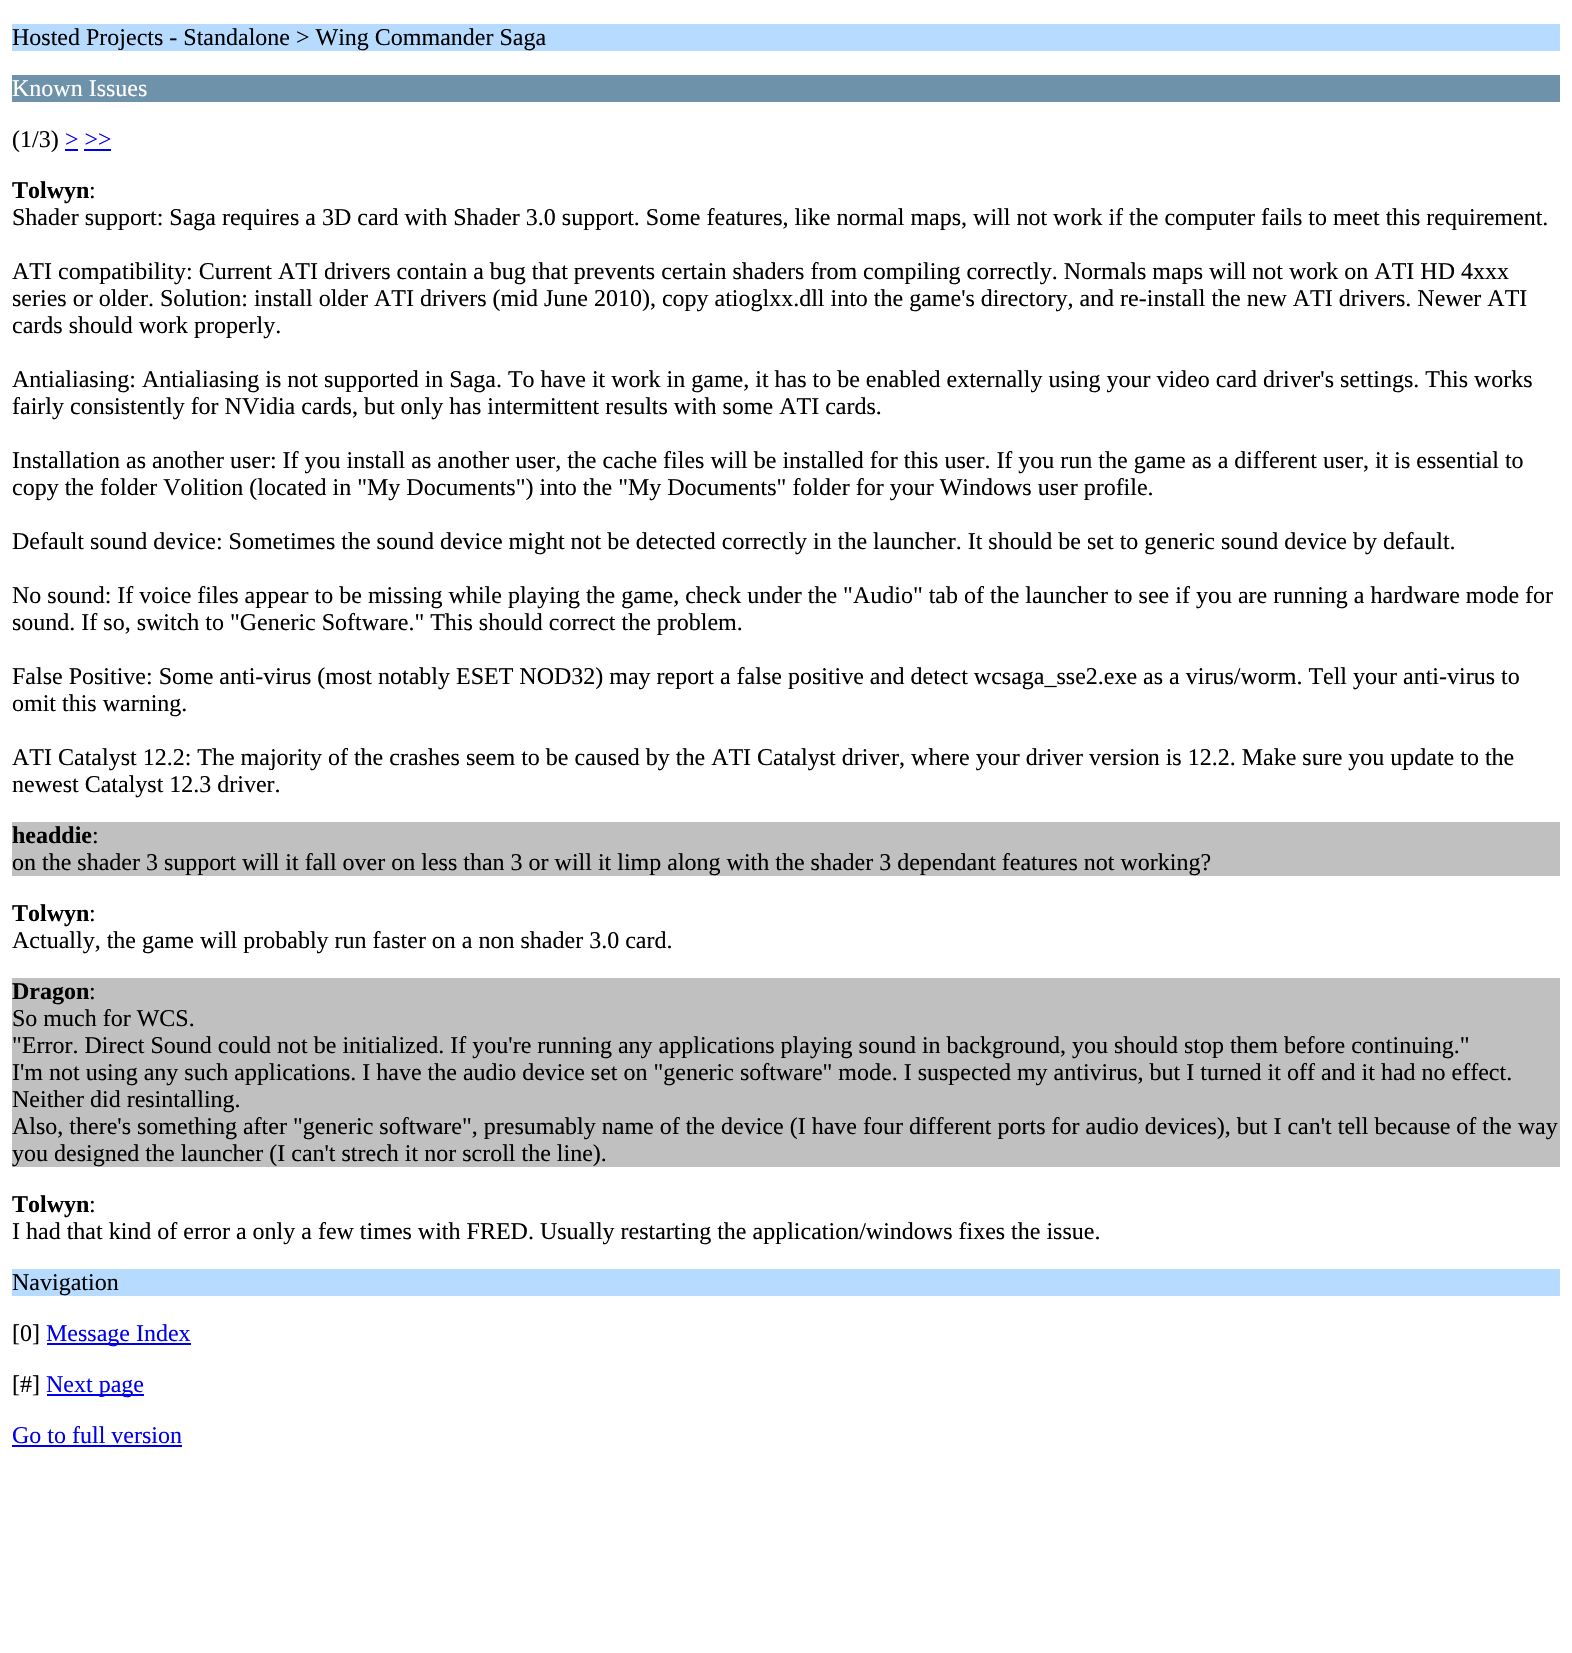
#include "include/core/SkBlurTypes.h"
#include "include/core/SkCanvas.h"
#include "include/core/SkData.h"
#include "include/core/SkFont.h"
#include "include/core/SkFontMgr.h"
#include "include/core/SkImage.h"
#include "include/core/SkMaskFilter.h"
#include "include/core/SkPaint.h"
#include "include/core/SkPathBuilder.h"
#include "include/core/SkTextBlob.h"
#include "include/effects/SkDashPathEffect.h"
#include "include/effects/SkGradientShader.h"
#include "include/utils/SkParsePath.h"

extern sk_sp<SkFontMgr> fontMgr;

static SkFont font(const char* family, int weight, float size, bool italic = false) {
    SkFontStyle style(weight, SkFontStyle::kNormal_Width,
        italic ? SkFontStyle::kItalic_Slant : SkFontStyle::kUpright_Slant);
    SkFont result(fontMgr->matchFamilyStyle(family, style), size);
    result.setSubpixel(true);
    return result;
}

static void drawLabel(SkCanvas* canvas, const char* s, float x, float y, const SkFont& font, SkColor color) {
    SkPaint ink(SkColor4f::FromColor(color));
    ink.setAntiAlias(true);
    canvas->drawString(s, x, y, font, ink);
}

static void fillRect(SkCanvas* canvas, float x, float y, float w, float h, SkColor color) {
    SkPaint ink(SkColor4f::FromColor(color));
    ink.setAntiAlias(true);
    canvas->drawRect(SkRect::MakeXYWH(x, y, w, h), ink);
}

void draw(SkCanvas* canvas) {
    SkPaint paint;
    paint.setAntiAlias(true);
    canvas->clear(0xFFFFFFFF);
    fillRect(canvas, 12, 24, 1548, 27, 0xFFB6DBFF);
    SkFont font1 = font("Liberation Serif", 400, 24);
    drawLabel(canvas, "Hosted Projects - Standalone > Wing Commander Saga", 12, 45, font1, 0xFF000000);
    fillRect(canvas, 12, 75, 1548, 27, 0xFF6D92AA);
    drawLabel(canvas, "Known Issues", 12, 96, font1, 0xFFFFFFFF);
    drawLabel(canvas, "(1/3)", 12, 147, font1, 0xFF000000);
    drawLabel(canvas, "> >>", 65, 147, font1, 0xFF0000EE);
    fillRect(canvas, 65, 149, 13, 2, 0xFF0000EE);
    fillRect(canvas, 84, 149, 27, 2, 0xFF0000EE);
    SkFont font2 = font("Liberation Serif", 700, 24);
    drawLabel(canvas, "Tolwyn", 12, 198, font2, 0xFF000000);
    drawLabel(canvas, ":", 89, 198, font1, 0xFF000000);
    drawLabel(canvas, "Shader support: Saga requires a 3D card with Shader 3.0 support. Some features, like normal maps, will not work if the computer fails to meet this requirement.", 12, 225, font1, 0xFF000000);
    drawLabel(canvas, "ATI compatibility: Current ATI drivers contain a bug that prevents certain shaders from compiling correctly. Normals maps will not work on ATI HD 4xxx", 12, 279, font1, 0xFF000000);
    drawLabel(canvas, "series or older. Solution: install older ATI drivers (mid June 2010), copy atioglxx.dll into the game's directory, and re-install the new ATI drivers. Newer ATI", 12, 306, font1, 0xFF000000);
    drawLabel(canvas, "cards should work properly.", 12, 333, font1, 0xFF000000);
    drawLabel(canvas, "Antialiasing: Antialiasing is not supported in Saga. To have it work in game, it has to be enabled externally using your video card driver's settings. This works", 12, 387, font1, 0xFF000000);
    drawLabel(canvas, "fairly consistently for NVidia cards, but only has intermittent results with some ATI cards.", 12, 414, font1, 0xFF000000);
    drawLabel(canvas, "Installation as another user: If you install as another user, the cache files will be installed for this user. If you run the game as a different user, it is essential to", 12, 468, font1, 0xFF000000);
    drawLabel(canvas, "copy the folder Volition (located in \"My Documents\") into the \"My Documents\" folder for your Windows user profile.", 12, 495, font1, 0xFF000000);
    drawLabel(canvas, "Default sound device: Sometimes the sound device might not be detected correctly in the launcher. It should be set to generic sound device by default.", 12, 549, font1, 0xFF000000);
    drawLabel(canvas, "No sound: If voice files appear to be missing while playing the game, check under the \"Audio\" tab of the launcher to see if you are running a hardware mode for", 12, 603, font1, 0xFF000000);
    drawLabel(canvas, "sound. If so, switch to \"Generic Software.\" This should correct the problem.", 12, 630, font1, 0xFF000000);
    drawLabel(canvas, "False Positive: Some anti-virus (most notably ESET NOD32) may report a false positive and detect wcsaga_sse2.exe as a virus/worm. Tell your anti-virus to", 12, 684, font1, 0xFF000000);
    drawLabel(canvas, "omit this warning.", 12, 711, font1, 0xFF000000);
    drawLabel(canvas, "ATI Catalyst 12.2: The majority of the crashes seem to be caused by the ATI Catalyst driver, where your driver version is 12.2. Make sure you update to the", 12, 765, font1, 0xFF000000);
    drawLabel(canvas, "newest Catalyst 12.3 driver.", 12, 792, font1, 0xFF000000);
    fillRect(canvas, 12, 822, 1548, 54, 0xFFC0C0C0);
    drawLabel(canvas, "headdie", 12, 843, font2, 0xFF000000);
    drawLabel(canvas, ":", 92, 843, font1, 0xFF000000);
    drawLabel(canvas, "on the shader 3 support will it fall over on less than 3 or will it limp along with the shader 3 dependant features not working?", 12, 870, font1, 0xFF000000);
    drawLabel(canvas, "Tolwyn", 12, 921, font2, 0xFF000000);
    drawLabel(canvas, ":", 89, 921, font1, 0xFF000000);
    drawLabel(canvas, "Actually, the game will probably run faster on a non shader 3.0 card.", 12, 948, font1, 0xFF000000);
    fillRect(canvas, 12, 978, 1548, 189, 0xFFC0C0C0);
    drawLabel(canvas, "Dragon", 12, 999, font2, 0xFF000000);
    drawLabel(canvas, ":", 89, 999, font1, 0xFF000000);
    drawLabel(canvas, "So much for WCS.", 12, 1026, font1, 0xFF000000);
    drawLabel(canvas, "\"Error. Direct Sound could not be initialized. If you're running any applications playing sound in background, you should stop them before continuing.\"", 12, 1053, font1, 0xFF000000);
    drawLabel(canvas, "I'm not using any such applications. I have the audio device set on \"generic software\" mode. I suspected my antivirus, but I turned it off and it had no effect.", 12, 1080, font1, 0xFF000000);
    drawLabel(canvas, "Neither did resintalling.", 12, 1107, font1, 0xFF000000);
    drawLabel(canvas, "Also, there's something after \"generic software\", presumably name of the device (I have four different ports for audio devices), but I can't tell because of the way", 12, 1134, font1, 0xFF000000);
    drawLabel(canvas, "you designed the launcher (I can't strech it nor scroll the line).", 12, 1161, font1, 0xFF000000);
    drawLabel(canvas, "Tolwyn", 12, 1212, font2, 0xFF000000);
    drawLabel(canvas, ":", 89, 1212, font1, 0xFF000000);
    drawLabel(canvas, "I had that kind of error a only a few times with FRED. Usually restarting the application/windows fixes the issue.", 12, 1239, font1, 0xFF000000);
    fillRect(canvas, 12, 1269, 1548, 27, 0xFFB6DBFF);
    drawLabel(canvas, "Navigation", 12, 1290, font1, 0xFF000000);
    drawLabel(canvas, "[0]", 12, 1341, font1, 0xFF000000);
    fillRect(canvas, 47, 1343, 144, 2, 0xFF0000EE);
    drawLabel(canvas, "Message Index", 46, 1341, font1, 0xFF0000EE);
    drawLabel(canvas, "[#]", 12, 1392, font1, 0xFF000000);
    fillRect(canvas, 47, 1394, 97, 2, 0xFF0000EE);
    drawLabel(canvas, "Next page", 46, 1392, font1, 0xFF0000EE);
    drawLabel(canvas, "Go to full version", 12, 1443, font1, 0xFF0000EE);
    fillRect(canvas, 12, 1445, 170, 2, 0xFF0000EE);
}
